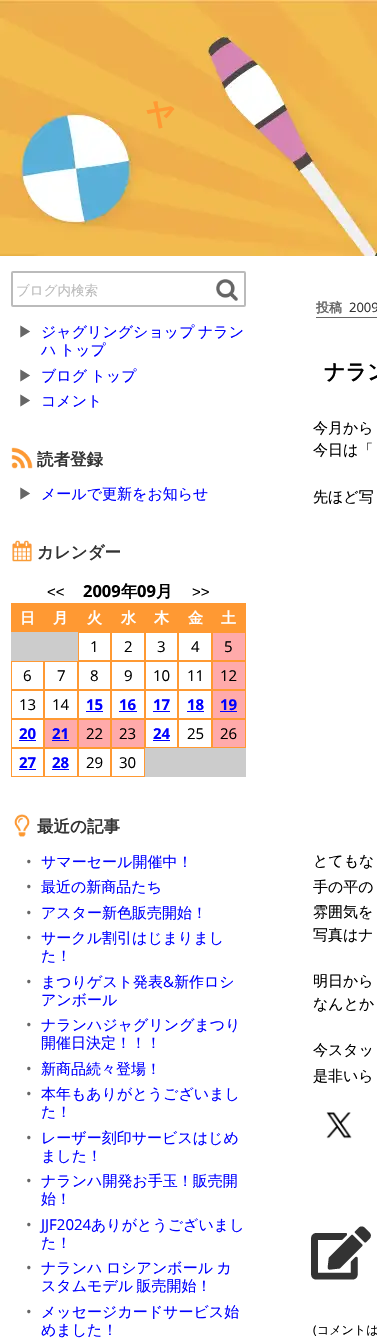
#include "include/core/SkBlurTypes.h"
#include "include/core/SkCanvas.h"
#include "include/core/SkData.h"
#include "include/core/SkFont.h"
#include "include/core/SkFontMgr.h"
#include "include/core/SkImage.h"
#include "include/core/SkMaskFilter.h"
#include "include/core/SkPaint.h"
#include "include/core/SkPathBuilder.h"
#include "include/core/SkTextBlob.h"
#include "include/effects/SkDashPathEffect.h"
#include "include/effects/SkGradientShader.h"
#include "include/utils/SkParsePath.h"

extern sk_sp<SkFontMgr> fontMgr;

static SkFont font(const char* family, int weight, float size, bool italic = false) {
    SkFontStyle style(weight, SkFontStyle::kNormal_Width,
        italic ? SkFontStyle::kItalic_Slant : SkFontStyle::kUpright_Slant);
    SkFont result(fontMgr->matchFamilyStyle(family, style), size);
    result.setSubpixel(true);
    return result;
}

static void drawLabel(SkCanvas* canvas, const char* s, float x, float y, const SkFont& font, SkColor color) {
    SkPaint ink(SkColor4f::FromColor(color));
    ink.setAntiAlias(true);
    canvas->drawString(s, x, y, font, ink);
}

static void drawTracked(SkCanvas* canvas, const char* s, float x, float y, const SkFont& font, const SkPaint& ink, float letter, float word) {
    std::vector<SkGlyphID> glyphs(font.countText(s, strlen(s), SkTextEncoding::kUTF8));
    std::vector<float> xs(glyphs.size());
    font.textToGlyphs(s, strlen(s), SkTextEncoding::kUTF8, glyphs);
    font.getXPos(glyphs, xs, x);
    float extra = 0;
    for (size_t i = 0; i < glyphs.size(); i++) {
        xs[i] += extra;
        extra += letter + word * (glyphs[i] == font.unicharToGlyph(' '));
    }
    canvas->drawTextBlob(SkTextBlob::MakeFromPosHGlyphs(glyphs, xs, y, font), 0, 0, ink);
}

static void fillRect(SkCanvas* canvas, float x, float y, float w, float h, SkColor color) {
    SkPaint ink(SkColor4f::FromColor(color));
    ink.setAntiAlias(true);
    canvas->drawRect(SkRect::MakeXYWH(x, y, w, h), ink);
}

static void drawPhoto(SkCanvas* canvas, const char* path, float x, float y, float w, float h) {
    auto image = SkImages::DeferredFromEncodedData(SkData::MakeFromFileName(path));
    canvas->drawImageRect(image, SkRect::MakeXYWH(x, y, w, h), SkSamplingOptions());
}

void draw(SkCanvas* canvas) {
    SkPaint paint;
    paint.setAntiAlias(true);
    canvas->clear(0xFFFFFFFF);
    drawPhoto(canvas, "assets/img1.png", 0, 0, 377, 256);
    SkFont font1 = font("WenQuanYi Zen Hei", 700, 38);
    paint.setColor(0xFFFF9933);
    drawTracked(canvas, "ャ", 141, 124, font1, paint, 0, -2);
    paint.setStroke(true);
    paint.setStrokeWidth(2);
    paint.setColor(0xFFBBBBBB);
    canvas->drawRoundRect(SkRect::MakeXYWH(12, 272, 233, 34), 1, 1, paint);
    SkFont font2 = font("WenQuanYi Zen Hei", 500, 13.5f);
    drawLabel(canvas, "ブログ内検索", 16, 295, font2, 0xFFBBBBBB);
    drawPhoto(canvas, "assets/img2.png", 216, 279, 22, 22);
    SkFont font3 = font("WenQuanYi Zen Hei", 500, 15);
    drawLabel(canvas, "▶", 18, 337, font3, 0xFF666666);
    paint.setStroke(false);
    paint.setColor(0xFF0000FF);
    drawTracked(canvas, "ジャグリングショップ ナラン", 41, 337, font3, paint, 0, -1);
    drawTracked(canvas, "ハ トップ", 41, 355, font3, paint, 0, -1);
    drawLabel(canvas, "▶", 18, 381, font3, 0xFF666666);
    drawTracked(canvas, "ブログ トップ", 41, 381, font3, paint, 0, -1);
    drawLabel(canvas, "▶", 18, 406, font3, 0xFF666666);
    drawLabel(canvas, "コメント", 41, 406, font3, 0xFF0000FF);
    drawPhoto(canvas, "assets/img3.png", 11, 447, 22, 22);
    SkFont font4 = font("WenQuanYi Zen Hei", 700, 16.5f);
    drawLabel(canvas, "読者登録", 37, 465, font4, 0xFF333333);
    drawLabel(canvas, "▶", 18, 499, font3, 0xFF666666);
    drawLabel(canvas, "メールで更新をお知らせ", 41, 499, font3, 0xFF0000FF);
    drawPhoto(canvas, "assets/img4.png", 12, 540, 20, 22);
    drawLabel(canvas, "カレンダー", 37, 558, font4, 0xFF333333);
    SkFont font5 = font("Liberation Sans", 400, 15);
    drawLabel(canvas, "<<", 47, 597, font5, 0xFF000000);
    SkFont font6 = font("Open Sans", 700, 16.5f);
    drawLabel(canvas, "2009", 83, 597, font6, 0xFF000000);
    drawLabel(canvas, "年", 121, 597, font4, 0xFF000000);
    drawLabel(canvas, "09", 137, 597, font6, 0xFF000000);
    drawLabel(canvas, "月", 156, 597, font4, 0xFF000000);
    drawLabel(canvas, ">>", 192, 597, font5, 0xFF000000);
    fillRect(canvas, 11, 603, 235, 29, 0xFFFF9933);
    SkFont font7 = font("WenQuanYi Zen Hei", 700, 15);
    drawLabel(canvas, "日", 20, 623, font7, 0xFFFFFFFF);
    drawLabel(canvas, "月", 53, 623, font7, 0xFFFFFFFF);
    drawLabel(canvas, "火", 87, 623, font7, 0xFFFFFFFF);
    drawLabel(canvas, "水", 121, 623, font7, 0xFFFFFFFF);
    drawLabel(canvas, "木", 154, 623, font7, 0xFFFFFFFF);
    drawLabel(canvas, "金", 188, 623, font7, 0xFFFFFFFF);
    drawLabel(canvas, "土", 221, 623, font7, 0xFFFFFFFF);
    fillRect(canvas, 11, 632, 67, 29, 0xFFCCCCCC);
    paint.setStroke(true);
    paint.setStrokeWidth(1);
    paint.setColor(0xFFFF9933);
    canvas->drawRect(SkRect::MakeXYWH(78.5f, 632.5f, 32, 28), paint);
    SkFont font8 = font("Open Sans", 400, 15);
    drawLabel(canvas, "1", 90, 652, font8, 0xFF000000);
    canvas->drawRect(SkRect::MakeXYWH(111.5f, 632.5f, 33, 28), paint);
    drawLabel(canvas, "2", 124, 652, font8, 0xFF000000);
    canvas->drawRect(SkRect::MakeXYWH(145.5f, 632.5f, 32, 28), paint);
    drawLabel(canvas, "3", 157, 652, font8, 0xFF000000);
    canvas->drawRect(SkRect::MakeXYWH(178.5f, 632.5f, 33, 28), paint);
    drawLabel(canvas, "4", 191, 652, font8, 0xFF000000);
    paint.setStroke(false);
    paint.setColor(0xFFFFAAAA);
    canvas->drawRect(SkRect::MakeXYWH(212.5f, 632.5f, 33, 28), paint);
    paint.setStroke(true);
    paint.setColor(0xFFFF9933);
    canvas->drawRect(SkRect::MakeXYWH(212.5f, 632.5f, 33, 28), paint);
    drawLabel(canvas, "5", 224, 652, font8, 0xFF000000);
    canvas->drawRect(SkRect::MakeXYWH(11.5f, 661.5f, 32, 28), paint);
    drawLabel(canvas, "6", 23, 681, font8, 0xFF000000);
    canvas->drawRect(SkRect::MakeXYWH(44.5f, 661.5f, 33, 28), paint);
    drawLabel(canvas, "7", 57, 681, font8, 0xFF000000);
    canvas->drawRect(SkRect::MakeXYWH(78.5f, 661.5f, 32, 28), paint);
    drawLabel(canvas, "8", 90, 681, font8, 0xFF000000);
    canvas->drawRect(SkRect::MakeXYWH(111.5f, 661.5f, 33, 28), paint);
    drawLabel(canvas, "9", 124, 681, font8, 0xFF000000);
    canvas->drawRect(SkRect::MakeXYWH(145.5f, 661.5f, 32, 28), paint);
    drawLabel(canvas, "10", 153, 681, font8, 0xFF000000);
    canvas->drawRect(SkRect::MakeXYWH(178.5f, 661.5f, 33, 28), paint);
    drawLabel(canvas, "11", 187, 681, font8, 0xFF000000);
    paint.setStroke(false);
    paint.setColor(0xFFFFAAAA);
    canvas->drawRect(SkRect::MakeXYWH(212.5f, 661.5f, 33, 28), paint);
    paint.setStroke(true);
    paint.setColor(0xFFFF9933);
    canvas->drawRect(SkRect::MakeXYWH(212.5f, 661.5f, 33, 28), paint);
    drawLabel(canvas, "12", 220, 681, font8, 0xFF000000);
    canvas->drawRect(SkRect::MakeXYWH(11.5f, 690.5f, 32, 28), paint);
    drawLabel(canvas, "13", 19, 710, font8, 0xFF000000);
    canvas->drawRect(SkRect::MakeXYWH(44.5f, 690.5f, 33, 28), paint);
    drawLabel(canvas, "14", 52, 710, font8, 0xFF000000);
    canvas->drawRect(SkRect::MakeXYWH(78.5f, 690.5f, 32, 28), paint);
    SkFont font9 = font("Open Sans", 700, 15);
    drawLabel(canvas, "15", 86, 710, font9, 0xFF0000FF);
    fillRect(canvas, 86, 711, 17, 1, 0xFF0000FF);
    canvas->drawRect(SkRect::MakeXYWH(111.5f, 690.5f, 33, 28), paint);
    drawLabel(canvas, "16", 119, 710, font9, 0xFF0000FF);
    fillRect(canvas, 119, 711, 18, 1, 0xFF0000FF);
    canvas->drawRect(SkRect::MakeXYWH(145.5f, 690.5f, 32, 28), paint);
    drawLabel(canvas, "17", 153, 710, font9, 0xFF0000FF);
    fillRect(canvas, 153, 711, 17, 1, 0xFF0000FF);
    canvas->drawRect(SkRect::MakeXYWH(178.5f, 690.5f, 33, 28), paint);
    drawLabel(canvas, "18", 187, 710, font9, 0xFF0000FF);
    fillRect(canvas, 187, 711, 17, 1, 0xFF0000FF);
    paint.setStroke(false);
    paint.setColor(0xFFFFAAAA);
    canvas->drawRect(SkRect::MakeXYWH(212.5f, 690.5f, 33, 28), paint);
    paint.setStroke(true);
    paint.setColor(0xFFFF9933);
    canvas->drawRect(SkRect::MakeXYWH(212.5f, 690.5f, 33, 28), paint);
    drawLabel(canvas, "19", 220, 710, font9, 0xFF0000FF);
    fillRect(canvas, 220, 711, 17, 1, 0xFF0000FF);
    canvas->drawRect(SkRect::MakeXYWH(11.5f, 719.5f, 32, 28), paint);
    drawLabel(canvas, "20", 19, 739, font9, 0xFF0000FF);
    fillRect(canvas, 19, 740, 17, 1, 0xFF0000FF);
    paint.setStroke(false);
    paint.setColor(0xFFFFAAAA);
    canvas->drawRect(SkRect::MakeXYWH(44.5f, 719.5f, 33, 28), paint);
    paint.setStroke(true);
    paint.setColor(0xFFFF9933);
    canvas->drawRect(SkRect::MakeXYWH(44.5f, 719.5f, 33, 28), paint);
    drawLabel(canvas, "21", 52, 739, font9, 0xFF0000FF);
    fillRect(canvas, 52, 740, 17, 1, 0xFF0000FF);
    paint.setStroke(false);
    paint.setColor(0xFFFFAAAA);
    canvas->drawRect(SkRect::MakeXYWH(78.5f, 719.5f, 32, 28), paint);
    paint.setStroke(true);
    paint.setColor(0xFFFF9933);
    canvas->drawRect(SkRect::MakeXYWH(78.5f, 719.5f, 32, 28), paint);
    drawLabel(canvas, "22", 86, 739, font8, 0xFF000000);
    paint.setStroke(false);
    paint.setColor(0xFFFFAAAA);
    canvas->drawRect(SkRect::MakeXYWH(111.5f, 719.5f, 33, 28), paint);
    paint.setStroke(true);
    paint.setColor(0xFFFF9933);
    canvas->drawRect(SkRect::MakeXYWH(111.5f, 719.5f, 33, 28), paint);
    drawLabel(canvas, "23", 119, 739, font8, 0xFF000000);
    canvas->drawRect(SkRect::MakeXYWH(145.5f, 719.5f, 32, 28), paint);
    drawLabel(canvas, "24", 153, 739, font9, 0xFF0000FF);
    fillRect(canvas, 153, 740, 17, 1, 0xFF0000FF);
    canvas->drawRect(SkRect::MakeXYWH(178.5f, 719.5f, 33, 28), paint);
    drawLabel(canvas, "25", 187, 739, font8, 0xFF000000);
    paint.setStroke(false);
    paint.setColor(0xFFFFAAAA);
    canvas->drawRect(SkRect::MakeXYWH(212.5f, 719.5f, 33, 28), paint);
    paint.setStroke(true);
    paint.setColor(0xFFFF9933);
    canvas->drawRect(SkRect::MakeXYWH(212.5f, 719.5f, 33, 28), paint);
    drawLabel(canvas, "26", 220, 739, font8, 0xFF000000);
    canvas->drawRect(SkRect::MakeXYWH(11.5f, 748.5f, 32, 28), paint);
    drawLabel(canvas, "27", 19, 768, font9, 0xFF0000FF);
    fillRect(canvas, 19, 769, 17, 1, 0xFF0000FF);
    canvas->drawRect(SkRect::MakeXYWH(44.5f, 748.5f, 33, 28), paint);
    drawLabel(canvas, "28", 52, 768, font9, 0xFF0000FF);
    fillRect(canvas, 52, 769, 17, 1, 0xFF0000FF);
    canvas->drawRect(SkRect::MakeXYWH(78.5f, 748.5f, 32, 28), paint);
    drawLabel(canvas, "29", 86, 768, font8, 0xFF000000);
    canvas->drawRect(SkRect::MakeXYWH(111.5f, 748.5f, 33, 28), paint);
    drawLabel(canvas, "30", 119, 768, font8, 0xFF000000);
    fillRect(canvas, 145, 748, 101, 29, 0xFFCCCCCC);
    drawPhoto(canvas, "assets/img5.png", 14, 814, 16, 23);
    drawLabel(canvas, "最近の記事", 37, 832, font4, 0xFF333333);
    drawLabel(canvas, "•", 26, 867, font8, 0xFF666666);
    drawLabel(canvas, "サマーセール開催中！", 41, 867, font3, 0xFF0000FF);
    drawLabel(canvas, "•", 26, 892, font8, 0xFF666666);
    drawLabel(canvas, "最近の新商品たち", 41, 892, font3, 0xFF0000FF);
    drawLabel(canvas, "•", 26, 918, font8, 0xFF666666);
    drawLabel(canvas, "アスター新色販売開始！", 41, 918, font3, 0xFF0000FF);
    drawLabel(canvas, "•", 26, 943, font8, 0xFF666666);
    drawLabel(canvas, "サークル割引はじまりまし", 41, 943, font3, 0xFF0000FF);
    drawLabel(canvas, "た！", 41, 961, font3, 0xFF0000FF);
    drawLabel(canvas, "•", 26, 987, font8, 0xFF666666);
    drawLabel(canvas, "まつりゲスト発表", 41, 987, font3, 0xFF0000FF);
    drawLabel(canvas, "&", 163, 987, font8, 0xFF0000FF);
    drawLabel(canvas, "新作ロシ", 174, 987, font3, 0xFF0000FF);
    drawLabel(canvas, "アンボール", 41, 1005, font3, 0xFF0000FF);
    drawLabel(canvas, "•", 26, 1030, font8, 0xFF666666);
    drawLabel(canvas, "ナランハジャグリングまつり", 41, 1030, font3, 0xFF0000FF);
    drawLabel(canvas, "開催日決定！！！", 41, 1048, font3, 0xFF0000FF);
    drawLabel(canvas, "•", 26, 1074, font8, 0xFF666666);
    drawLabel(canvas, "新商品続々登場！", 41, 1074, font3, 0xFF0000FF);
    drawLabel(canvas, "•", 26, 1099, font8, 0xFF666666);
    drawLabel(canvas, "本年もありがとうございまし", 41, 1099, font3, 0xFF0000FF);
    drawLabel(canvas, "た！", 41, 1117, font3, 0xFF0000FF);
    drawLabel(canvas, "•", 26, 1143, font8, 0xFF666666);
    drawLabel(canvas, "レーザー刻印サービスはじめ", 41, 1143, font3, 0xFF0000FF);
    drawLabel(canvas, "ました！", 41, 1161, font3, 0xFF0000FF);
    drawLabel(canvas, "•", 26, 1186, font8, 0xFF666666);
    drawLabel(canvas, "ナランハ開発お手玉！販売開", 41, 1186, font3, 0xFF0000FF);
    drawLabel(canvas, "始！", 41, 1204, font3, 0xFF0000FF);
    drawLabel(canvas, "•", 26, 1230, font8, 0xFF666666);
    drawLabel(canvas, "JJF2024", 41, 1230, font8, 0xFF0000FF);
    drawLabel(canvas, "ありがとうございまし", 91, 1230, font3, 0xFF0000FF);
    drawLabel(canvas, "た！", 41, 1248, font3, 0xFF0000FF);
    drawLabel(canvas, "•", 26, 1273, font8, 0xFF666666);
    paint.setStroke(false);
    paint.setColor(0xFF0000FF);
    drawTracked(canvas, "ナランハ ロシアンボール カ", 41, 1273, font3, paint, 0, -1);
    drawTracked(canvas, "スタムモデル 販売開始！", 41, 1291, font3, paint, 0, -1);
    drawLabel(canvas, "•", 26, 1317, font8, 0xFF666666);
    drawLabel(canvas, "メッセージカードサービス始", 41, 1317, font3, 0xFF0000FF);
    drawLabel(canvas, "めました！", 41, 1335, font3, 0xFF0000FF);
    fillRect(canvas, 316, 317, 61, 1, 0xFF666666);
    SkFont font10 = font("WenQuanYi Zen Hei", 700, 13);
    drawLabel(canvas, "投稿", 316, 312, font10, 0xFF666666);
    SkFont font11 = font("Open Sans", 400, 13);
    drawLabel(canvas, "2009", 349, 312, font11, 0xFF333333);
    SkFont font12 = font("WenQuanYi Zen Hei", 700, 21);
    paint.setColor(0xFF000000);
    drawTracked(canvas, "ナラン", 324, 379, font12, paint, 0, -1);
    drawTracked(canvas, "今月から", 313, 433, font3, paint, 0, -1);
    drawLabel(canvas, "今日は「", 313, 455, font3, 0xFF000000);
    drawLabel(canvas, "先ほど写", 313, 502, font3, 0xFF000000);
    drawLabel(canvas, "とてもな", 313, 866, font3, 0xFF000000);
    drawLabel(canvas, "手の平の", 313, 892, font3, 0xFF000000);
    drawLabel(canvas, "雰囲気を", 313, 917, font3, 0xFF000000);
    drawLabel(canvas, "写真はナ", 313, 940, font3, 0xFF000000);
    drawLabel(canvas, "明日から", 313, 986, font3, 0xFF000000);
    drawLabel(canvas, "なんとか", 313, 1009, font3, 0xFF000000);
    drawLabel(canvas, "今スタッ", 313, 1055, font3, 0xFF000000);
    drawLabel(canvas, "是非いら", 313, 1081, font3, 0xFF000000);
    drawPhoto(canvas, "assets/img6.png", 326, 1112, 26, 27);
    drawPhoto(canvas, "assets/img7.png", 311, 1226, 60, 54);
    SkFont font13 = font("Open Sans", 400, 12);
    drawLabel(canvas, "(", 313, 1334, font13, 0xFF000000);
    SkFont font14 = font("WenQuanYi Zen Hei", 500, 12);
    drawLabel(canvas, "コメントは", 317, 1334, font14, 0xFF000000);
}
